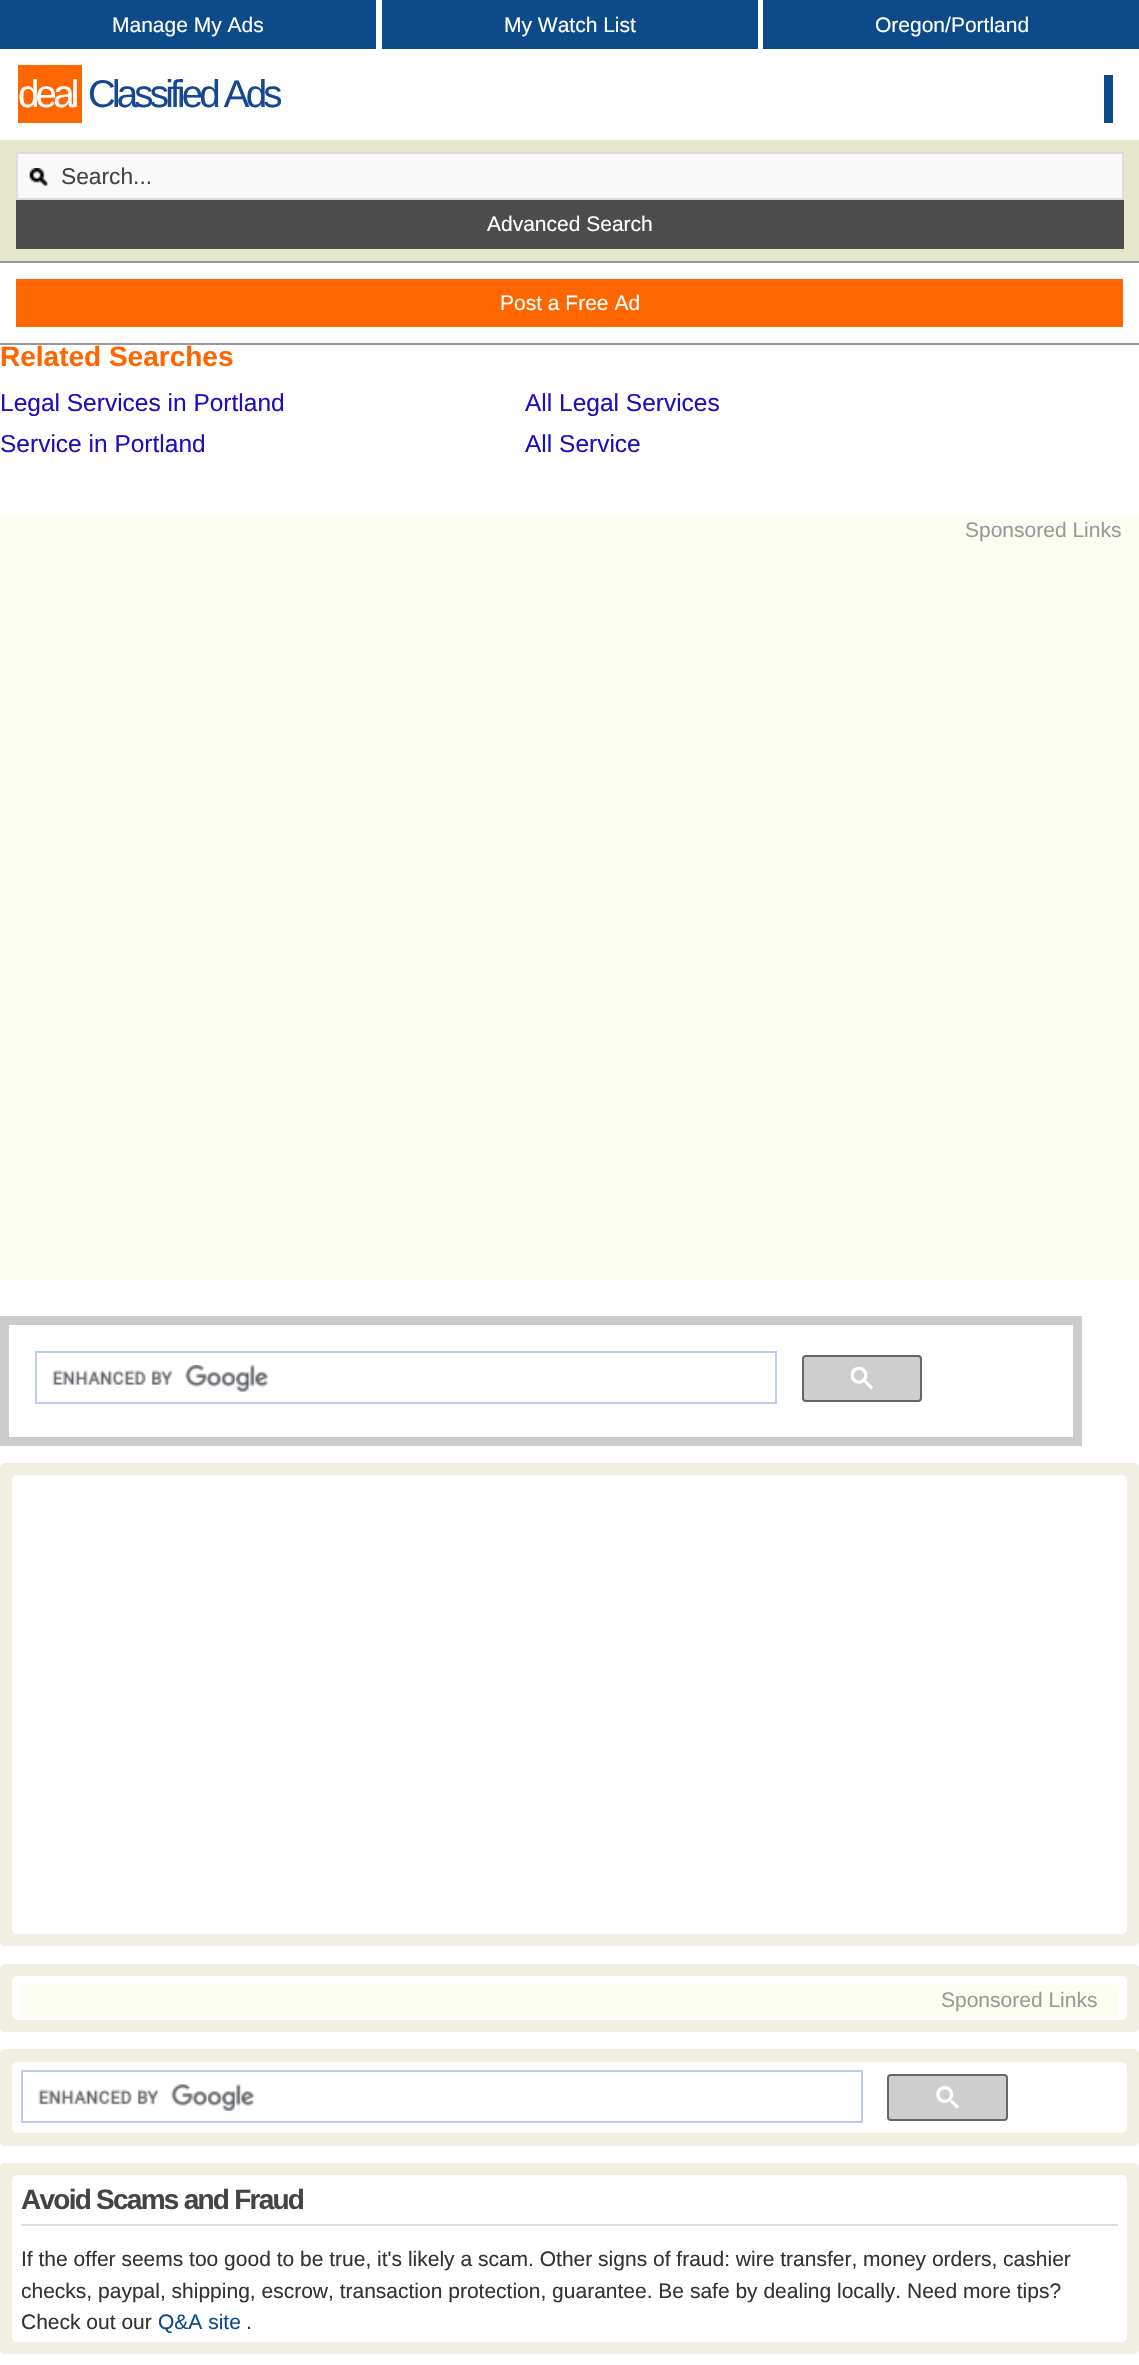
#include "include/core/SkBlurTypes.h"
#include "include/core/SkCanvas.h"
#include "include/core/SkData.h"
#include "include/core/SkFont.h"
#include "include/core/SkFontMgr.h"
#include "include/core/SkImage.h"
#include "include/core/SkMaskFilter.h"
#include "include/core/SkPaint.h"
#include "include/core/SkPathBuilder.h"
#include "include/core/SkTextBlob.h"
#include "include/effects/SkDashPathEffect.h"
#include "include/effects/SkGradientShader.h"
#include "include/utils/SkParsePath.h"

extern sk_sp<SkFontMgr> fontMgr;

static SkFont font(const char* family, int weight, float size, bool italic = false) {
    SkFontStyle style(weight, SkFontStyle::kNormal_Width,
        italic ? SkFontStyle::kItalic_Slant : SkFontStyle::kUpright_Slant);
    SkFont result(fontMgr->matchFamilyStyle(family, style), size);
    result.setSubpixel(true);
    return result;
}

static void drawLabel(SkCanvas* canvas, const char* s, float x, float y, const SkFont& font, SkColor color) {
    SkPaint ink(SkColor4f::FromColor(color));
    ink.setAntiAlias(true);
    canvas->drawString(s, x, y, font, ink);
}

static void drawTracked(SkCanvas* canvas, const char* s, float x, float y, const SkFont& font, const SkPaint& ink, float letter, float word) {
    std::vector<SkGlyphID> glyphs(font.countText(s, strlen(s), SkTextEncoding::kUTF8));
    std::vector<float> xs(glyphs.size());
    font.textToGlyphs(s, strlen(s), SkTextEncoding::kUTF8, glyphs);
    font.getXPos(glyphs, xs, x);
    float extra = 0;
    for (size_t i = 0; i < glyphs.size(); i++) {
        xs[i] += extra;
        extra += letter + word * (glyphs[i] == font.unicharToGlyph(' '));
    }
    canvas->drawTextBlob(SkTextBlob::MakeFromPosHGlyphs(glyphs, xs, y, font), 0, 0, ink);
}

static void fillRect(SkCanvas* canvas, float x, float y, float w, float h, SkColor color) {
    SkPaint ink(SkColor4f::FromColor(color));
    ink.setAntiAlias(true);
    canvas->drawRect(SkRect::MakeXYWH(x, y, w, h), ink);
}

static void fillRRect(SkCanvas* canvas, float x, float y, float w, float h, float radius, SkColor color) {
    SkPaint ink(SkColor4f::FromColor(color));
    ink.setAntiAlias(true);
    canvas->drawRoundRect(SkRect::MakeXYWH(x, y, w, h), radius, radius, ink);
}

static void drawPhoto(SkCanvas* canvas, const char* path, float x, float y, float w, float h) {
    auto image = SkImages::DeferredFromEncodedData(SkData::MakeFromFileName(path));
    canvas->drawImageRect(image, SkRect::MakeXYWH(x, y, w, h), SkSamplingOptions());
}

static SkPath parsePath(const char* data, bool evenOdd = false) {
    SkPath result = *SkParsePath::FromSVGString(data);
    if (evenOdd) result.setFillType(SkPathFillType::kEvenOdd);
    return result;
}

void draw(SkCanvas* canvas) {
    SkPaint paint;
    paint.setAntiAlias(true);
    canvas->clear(0xFFFFFFFF);
    paint.setStroke(true);
    paint.setStrokeWidth(2);
    paint.setColor(0xFFDDDDDD);
    canvas->drawRect(SkRect::MakeXYWH(1, 185, 304, 45), paint);
    paint.setStrokeWidth(15.8f);
    paint.setColor(0xFFE6E6CC);
    canvas->drawPath(parsePath("M8 144.5H1131.5V256.5H8Z"), paint);
    fillRect(canvas, 0, 136, 1139, 4, 0xFFFFFFFF);
    fillRect(canvas, 0, 0, 376, 49, 0xFF0C4A8A);
    SkFont font1 = font("Liberation Sans", 400, 21);
    drawLabel(canvas, "Manage My Ads", 112, 32, font1, 0xFFFFFFFF);
    fillRect(canvas, 382, 0, 376, 49, 0xFF0C4A8A);
    drawLabel(canvas, "My Watch List", 504, 32, font1, 0xFFFFFFFF);
    fillRect(canvas, 763, 0, 376, 49, 0xFF0C4A8A);
    drawLabel(canvas, "Oregon/Portland", 875, 32, font1, 0xFFFFFFFF);
    paint.setStroke(false);
    paint.setColor(0xFFFF6600);
    canvas->drawRect(SkRect::MakeXYWH(8, 271, 1123, 64), paint);
    paint.setStroke(true);
    paint.setStrokeWidth(16);
    paint.setColor(0xFFFFFFFF);
    canvas->drawRect(SkRect::MakeXYWH(8, 271, 1123, 64), paint);
    paint.setStrokeWidth(2);
    paint.setColor(0xFF999999);
    canvas->drawRect(SkRect::MakeXYWH(-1, 262, 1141, 82), paint);
    drawLabel(canvas, "Post a Free Ad", 500, 310, font1, 0xFFFFFFFF);
    fillRect(canvas, 18, 65, 64, 58, 0xFFFF6600);
    SkFont font2 = font("Liberation Sans", 400, 38.5f);
    paint.setStroke(false);
    paint.setColor(0xFFFFFFFF);
    drawTracked(canvas, "deal", 18, 107, font2, paint, -3.8f, 0);
    paint.setColor(0xFF154890);
    drawTracked(canvas, "Classified Ads", 88, 107, font2, paint, -3.8f, 0);
    fillRect(canvas, 1104, 75, 9, 48, 0xFF0C4A8A);
    fillRect(canvas, 18, 154, 1104, 44, 0xFFF9F9F9);
    drawPhoto(canvas, "assets/img1.png", 29, 168, 19, 18);
    paint.setStroke(true);
    paint.setColor(0xFFDDDDDD);
    canvas->drawRect(SkRect::MakeXYWH(17, 153, 1106, 46), paint);
    SkFont font3 = font("Liberation Sans", 400, 22.75f);
    drawLabel(canvas, "Search...", 61, 184, font3, 0xFF444444);
    fillRect(canvas, 16, 200, 1108, 49, 0xFF4C4C4C);
    drawLabel(canvas, "Advanced Search", 487, 231, font1, 0xFFFFFFFF);
    fillRRect(canvas, 0, 1463, 1139, 483, 5, 0xFFF1EFE2);
    fillRRect(canvas, 12, 1475, 1115, 459, 5, 0xFFFFFFFF);
    fillRRect(canvas, 0, 1964, 1139, 68, 5, 0xFFF1EFE2);
    fillRRect(canvas, 12, 1976, 1115, 44, 5, 0xFFFFFFFF);
    fillRect(canvas, 21, 1985, 1097, 31, 0xFFFDFEF2);
    drawLabel(canvas, "Sponsored Links", 941, 2007, font1, 0xFF999999);
    fillRRect(canvas, 0, 2049, 1139, 97, 5, 0xFFF1EFE2);
    fillRRect(canvas, 12, 2062, 1115, 71, 5, 0xFFFFFFFF);
    paint.setColor(0xFFBCCDF0);
    canvas->drawRect(SkRect::MakeXYWH(22, 2071, 840, 51), paint);
    drawPhoto(canvas, "assets/img2.png", 38, 2084, 216, 27);
    paint.setStroke(false);
    paint.setColor(0xFFCECECE);
    canvas->drawRoundRect(SkRect::MakeXYWH(888, 2075, 119, 45), 3, 3, paint);
    paint.setStroke(true);
    paint.setColor(0xFF666666);
    canvas->drawRoundRect(SkRect::MakeXYWH(888, 2075, 119, 45), 3, 3, paint);
    drawPhoto(canvas, "assets/img3.png", 936, 2086, 23, 23);
    fillRRect(canvas, 0, 2163, 1139, 191, 5, 0xFFF1EFE2);
    fillRRect(canvas, 12, 2175, 1115, 167, 5, 0xFFFFFFFF);
    fillRect(canvas, 21, 2224, 1097, 2, 0xFFDDDDDD);
    SkFont font4 = font("Liberation Sans", 700, 28);
    paint.setStroke(false);
    paint.setColor(0xFF444444);
    drawTracked(canvas, "Avoid Scams and Fraud", 21, 2209, font4, paint, -1.75f, 0);
    drawLabel(canvas, "If the offer seems too good to be true, it's likely a scam. Other signs of fraud: wire transfer, money orders, cashier", 21, 2266, font1, 0xFF333333);
    drawLabel(canvas, "checks, paypal, shipping, escrow, transaction protection, guarantee. Be safe by dealing locally. Need more tips?", 21, 2298, font1, 0xFF333333);
    drawLabel(canvas, "Check out our", 21, 2329, font1, 0xFF333333);
    drawLabel(canvas, "Q&A site", 158, 2329, font1, 0xFF0C4A8A);
    drawLabel(canvas, ".", 246, 2329, font1, 0xFF333333);
    drawLabel(canvas, "Related Searches", 0, 366, font4, 0xFFFF6600);
    SkFont font5 = font("Liberation Sans", 400, 24.5f);
    drawLabel(canvas, "Legal Services in Portland", 0, 411, font5, 0xFF1E0FBE);
    drawLabel(canvas, "All Legal Services", 525, 411, font5, 0xFF1E0FBE);
    drawLabel(canvas, "Service in Portland", 0, 452, font5, 0xFF1E0FBE);
    drawLabel(canvas, "All Service", 525, 452, font5, 0xFF1E0FBE);
    fillRect(canvas, 0, 515, 1139, 766, 0xFFFDFEF2);
    drawLabel(canvas, "Sponsored Links", 965, 537, font1, 0xFF999999);
    paint.setStroke(true);
    paint.setStrokeWidth(9);
    paint.setColor(0xFFCCCCCC);
    canvas->drawRect(SkRect::MakeXYWH(4.5f, 1320.5f, 1073, 121), paint);
    paint.setStrokeWidth(2);
    paint.setColor(0xFFBCCDF0);
    canvas->drawRect(SkRect::MakeXYWH(36, 1352, 740, 51), paint);
    drawPhoto(canvas, "assets/img4.png", 52, 1365, 216, 27);
    paint.setStroke(false);
    paint.setColor(0xFFCECECE);
    canvas->drawRoundRect(SkRect::MakeXYWH(803, 1356, 118, 45), 3, 3, paint);
    paint.setStroke(true);
    paint.setColor(0xFF666666);
    canvas->drawRoundRect(SkRect::MakeXYWH(803, 1356, 118, 45), 3, 3, paint);
    drawPhoto(canvas, "assets/img5.png", 851, 1367, 22, 23);
}
